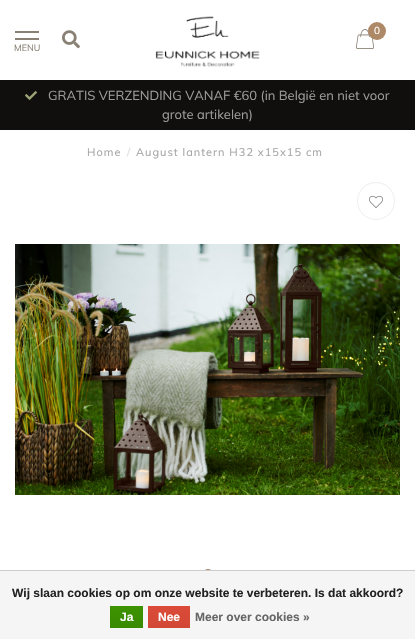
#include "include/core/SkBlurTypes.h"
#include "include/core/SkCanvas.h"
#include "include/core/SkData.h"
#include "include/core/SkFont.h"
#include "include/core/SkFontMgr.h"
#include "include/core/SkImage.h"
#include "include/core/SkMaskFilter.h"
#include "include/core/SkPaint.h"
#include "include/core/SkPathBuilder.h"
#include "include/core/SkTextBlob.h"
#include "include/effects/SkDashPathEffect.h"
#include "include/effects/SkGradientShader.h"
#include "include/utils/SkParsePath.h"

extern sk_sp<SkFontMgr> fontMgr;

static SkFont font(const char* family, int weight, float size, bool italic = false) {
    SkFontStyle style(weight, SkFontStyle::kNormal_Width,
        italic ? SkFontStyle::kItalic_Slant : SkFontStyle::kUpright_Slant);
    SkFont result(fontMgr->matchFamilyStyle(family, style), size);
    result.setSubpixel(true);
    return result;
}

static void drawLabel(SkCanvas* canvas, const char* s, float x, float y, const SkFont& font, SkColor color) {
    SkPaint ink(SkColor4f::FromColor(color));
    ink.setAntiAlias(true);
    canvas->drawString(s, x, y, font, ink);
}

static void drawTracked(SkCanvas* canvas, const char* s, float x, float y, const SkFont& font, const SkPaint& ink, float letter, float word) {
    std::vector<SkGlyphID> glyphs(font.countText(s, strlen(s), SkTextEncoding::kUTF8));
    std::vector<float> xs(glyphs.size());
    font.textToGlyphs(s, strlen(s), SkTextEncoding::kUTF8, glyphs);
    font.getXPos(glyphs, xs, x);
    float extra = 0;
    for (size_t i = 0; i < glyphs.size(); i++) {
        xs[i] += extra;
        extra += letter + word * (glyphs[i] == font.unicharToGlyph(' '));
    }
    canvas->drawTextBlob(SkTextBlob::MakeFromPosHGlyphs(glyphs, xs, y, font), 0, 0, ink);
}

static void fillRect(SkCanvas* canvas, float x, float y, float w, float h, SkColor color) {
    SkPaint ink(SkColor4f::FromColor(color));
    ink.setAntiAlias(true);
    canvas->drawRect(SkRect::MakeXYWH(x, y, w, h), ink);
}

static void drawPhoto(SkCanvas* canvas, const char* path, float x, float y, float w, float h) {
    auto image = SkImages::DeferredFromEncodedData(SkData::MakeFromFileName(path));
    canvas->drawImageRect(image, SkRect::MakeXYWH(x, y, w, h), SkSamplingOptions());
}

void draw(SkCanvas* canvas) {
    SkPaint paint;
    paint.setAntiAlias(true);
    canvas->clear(0xFFFFFFFF);
    drawPhoto(canvas, "assets/img1.png", 155, 16, 105, 51);
    drawPhoto(canvas, "assets/img2.png", 356, 29, 18, 20);
    paint.setColor(0xFFAD8967);
    canvas->drawCircle(377, 31, 9, paint);
    SkFont font1 = font("Muli", 400, 10);
    drawLabel(canvas, "0", 374, 34, font1, 0xFFFFFFFF);
    fillRect(canvas, 15, 31, 24, 2, 0xFF8A8175);
    fillRect(canvas, 15, 38, 24, 2, 0xFF8A8175);
    SkFont font2 = font("Muli", 400, 9);
    drawLabel(canvas, "MENU", 14, 51, font2, 0xFF8A8175);
    drawPhoto(canvas, "assets/img3.png", 62, 30, 18, 19);
    fillRect(canvas, 0, 80, 415, 50, 0xFF100F0D);
    drawPhoto(canvas, "assets/img4.png", 25, 91, 12, 9);
    SkFont font3 = font("Muli", 400, 13);
    drawLabel(canvas, "GRATIS VERZENDING VANAF €60 (in België en niet voor", 48, 100, font3, 0xFF9E9C9A);
    drawLabel(canvas, "grote artikelen)", 162, 119, font3, 0xFF9E9C9A);
    SkFont font4 = font("Muli", 400, 11);
    paint.setColor(0xFFA5A5A5);
    drawTracked(canvas, "Home", 87, 156, font4, paint, 1, 0);
    paint.setColor(0xFFDDDDDD);
    drawTracked(canvas, "/", 127, 156, font4, paint, 1, 0);
    paint.setColor(0xFFA5A5A5);
    drawTracked(canvas, "August lantern H32 x15x15 cm", 136, 156, font4, paint, 1, 0);
    paint.setStroke(true);
    paint.setStrokeWidth(1);
    paint.setColor(0xFFEEEEEE);
    canvas->drawCircle(376, 201, 18.5f, paint);
    drawPhoto(canvas, "assets/img5.png", 369, 195, 14, 13);
    drawPhoto(canvas, "assets/img6.png", 15, 244, 385, 251);
    paint.setStroke(false);
    paint.setColor(0xFFAD8967);
    canvas->drawCircle(208, 573, 4, paint);
    fillRect(canvas, 0, 571, 415, 68, 0xFFF5F5F5);
    fillRect(canvas, 0, 570, 415, 1, 0xFFCCCCCC);
    SkFont font5 = font("Liberation Sans", 700, 12);
    drawLabel(canvas, "Wij slaan cookies op om onze website te verbeteren. Is dat akkoord?", 12, 597, font5, 0xFF222222);
    {
        const SkColor colors[] = {0xFF3C9300, 0xFF398A00};
        const float stops[] = {0, 1};
        const SkPoint ends[] = {{127, 606}, {127, 628}};
        paint.setShader(SkGradientShader::MakeLinear(ends, colors, stops, 2, SkTileMode::kClamp));
        paint.setAlpha(255);
    }
    canvas->drawRect(SkRect::MakeXYWH(110, 606, 33, 22), paint);
    drawLabel(canvas, "Ja", 120, 621, font5, 0xFFFFFFFF);
    {
        const SkColor colors[] = {0xFFDC4A38, 0xFFD14836};
        const float stops[] = {0, 1};
        const SkPoint ends[] = {{169, 606}, {169, 628}};
        paint.setShader(SkGradientShader::MakeLinear(ends, colors, stops, 2, SkTileMode::kClamp));
        paint.setAlpha(255);
    }
    canvas->drawRect(SkRect::MakeXYWH(148, 606, 42, 22), paint);
    drawLabel(canvas, "Nee", 158, 621, font5, 0xFFFFFFFF);
    drawLabel(canvas, "Meer over cookies »", 195, 621, font5, 0xFF666666);
}
